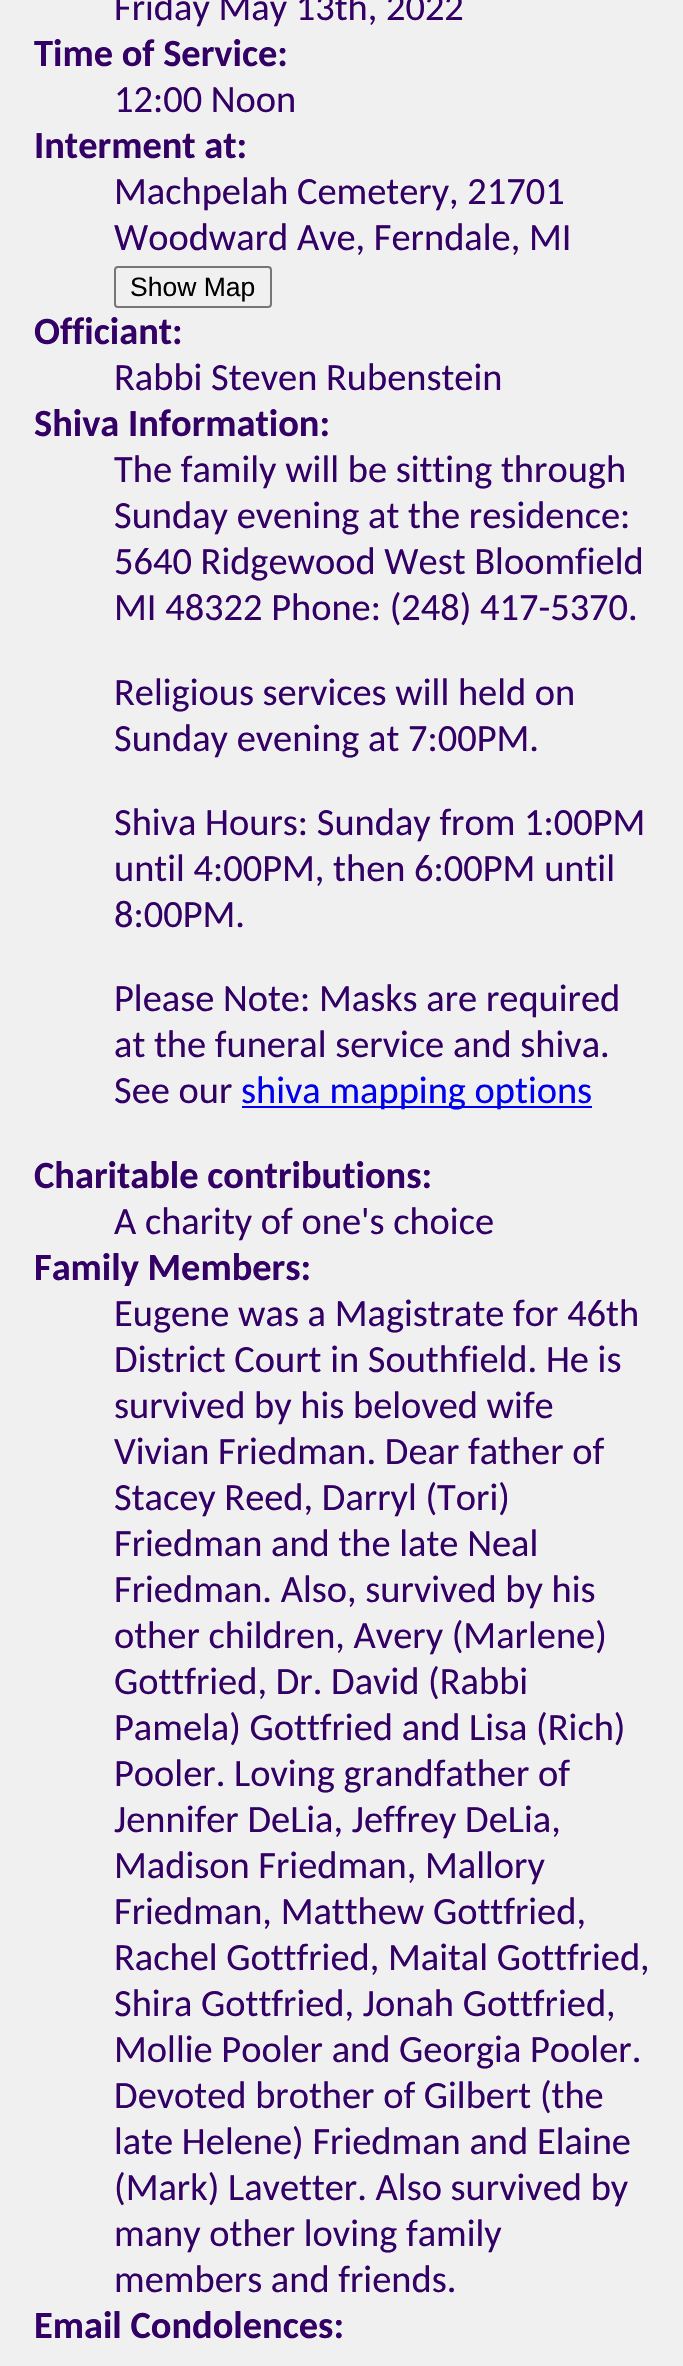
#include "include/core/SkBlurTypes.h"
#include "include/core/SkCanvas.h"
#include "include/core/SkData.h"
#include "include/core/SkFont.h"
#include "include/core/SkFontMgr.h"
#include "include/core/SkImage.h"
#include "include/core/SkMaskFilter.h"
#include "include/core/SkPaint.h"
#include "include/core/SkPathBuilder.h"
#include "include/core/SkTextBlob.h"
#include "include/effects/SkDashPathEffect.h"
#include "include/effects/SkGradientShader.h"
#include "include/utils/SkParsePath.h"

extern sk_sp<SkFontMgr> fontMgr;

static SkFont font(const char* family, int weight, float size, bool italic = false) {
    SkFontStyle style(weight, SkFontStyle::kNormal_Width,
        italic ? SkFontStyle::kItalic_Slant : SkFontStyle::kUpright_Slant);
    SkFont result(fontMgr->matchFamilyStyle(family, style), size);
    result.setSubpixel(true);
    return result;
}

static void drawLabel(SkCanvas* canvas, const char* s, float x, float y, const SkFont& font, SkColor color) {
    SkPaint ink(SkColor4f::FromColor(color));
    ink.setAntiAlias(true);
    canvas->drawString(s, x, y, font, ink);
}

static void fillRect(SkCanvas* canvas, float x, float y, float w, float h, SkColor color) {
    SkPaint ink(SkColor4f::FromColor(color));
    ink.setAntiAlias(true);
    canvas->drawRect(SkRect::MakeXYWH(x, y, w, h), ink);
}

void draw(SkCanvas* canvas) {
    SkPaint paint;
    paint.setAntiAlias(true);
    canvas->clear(0xFFF0F0F0);
    SkFont font1 = font("Carlito", 400, 38.4f);
    drawLabel(canvas, "Friday May 13th, 2022", 114, 20, font1, 0xFF330066);
    SkFont font2 = font("Carlito", 700, 38.4f);
    drawLabel(canvas, "Time of Service:", 34, 66, font2, 0xFF330066);
    drawLabel(canvas, "12:00 Noon", 114, 112, font1, 0xFF330066);
    drawLabel(canvas, "Interment at:", 34, 158, font2, 0xFF330066);
    drawLabel(canvas, "Machpelah Cemetery, 21701", 114, 204, font1, 0xFF330066);
    drawLabel(canvas, "Woodward Ave, Ferndale, MI", 114, 250, font1, 0xFF330066);
    paint.setStroke(true);
    paint.setStrokeWidth(2);
    paint.setColor(0xFF767676);
    canvas->drawRoundRect(SkRect::MakeXYWH(115, 267, 156, 40), 3, 3, paint);
    SkFont font3 = font("Liberation Sans", 400, 26.5f);
    drawLabel(canvas, "Show Map", 130, 296, font3, 0xFF000000);
    drawLabel(canvas, "Officiant:", 34, 344, font2, 0xFF330066);
    drawLabel(canvas, "Rabbi Steven Rubenstein", 114, 390, font1, 0xFF330066);
    drawLabel(canvas, "Shiva Information:", 34, 436, font2, 0xFF330066);
    drawLabel(canvas, "The family will be sitting through", 114, 482, font1, 0xFF330066);
    drawLabel(canvas, "Sunday evening at the residence:", 114, 528, font1, 0xFF330066);
    drawLabel(canvas, "5640 Ridgewood West Bloomfield", 114, 574, font1, 0xFF330066);
    drawLabel(canvas, "MI 48322 Phone: (248) 417-5370.", 114, 620, font1, 0xFF330066);
    drawLabel(canvas, "Religious services will held on", 114, 705, font1, 0xFF330066);
    drawLabel(canvas, "Sunday evening at 7:00PM.", 114, 751, font1, 0xFF330066);
    drawLabel(canvas, "Shiva Hours: Sunday from 1:00PM", 114, 835, font1, 0xFF330066);
    drawLabel(canvas, "until 4:00PM, then 6:00PM until", 114, 881, font1, 0xFF330066);
    drawLabel(canvas, "8:00PM.", 114, 927, font1, 0xFF330066);
    drawLabel(canvas, "Please Note: Masks are required", 114, 1011, font1, 0xFF330066);
    drawLabel(canvas, "at the funeral service and shiva.", 114, 1057, font1, 0xFF330066);
    drawLabel(canvas, "See our", 114, 1103, font1, 0xFF330066);
    fillRect(canvas, 242, 1106, 350, 2, 0xFF0000EE);
    drawLabel(canvas, "shiva mapping options", 241, 1103, font1, 0xFF0000EE);
    drawLabel(canvas, "Charitable contributions:", 34, 1188, font2, 0xFF330066);
    drawLabel(canvas, "A charity of one's choice", 114, 1234, font1, 0xFF330066);
    drawLabel(canvas, "Family Members:", 34, 1280, font2, 0xFF330066);
    drawLabel(canvas, "Eugene was a Magistrate for 46th", 114, 1326, font1, 0xFF330066);
    drawLabel(canvas, "District Court in Southfield. He is", 114, 1372, font1, 0xFF330066);
    drawLabel(canvas, "survived by his beloved wife", 114, 1418, font1, 0xFF330066);
    drawLabel(canvas, "Vivian Friedman. Dear father of", 114, 1464, font1, 0xFF330066);
    drawLabel(canvas, "Stacey Reed, Darryl (Tori)", 114, 1510, font1, 0xFF330066);
    drawLabel(canvas, "Friedman and the late Neal", 114, 1556, font1, 0xFF330066);
    drawLabel(canvas, "Friedman. Also, survived by his", 114, 1602, font1, 0xFF330066);
    drawLabel(canvas, "other children, Avery (Marlene)", 114, 1648, font1, 0xFF330066);
    drawLabel(canvas, "Gottfried, Dr. David (Rabbi", 114, 1694, font1, 0xFF330066);
    drawLabel(canvas, "Pamela) Gottfried and Lisa (Rich)", 114, 1740, font1, 0xFF330066);
    drawLabel(canvas, "Pooler. Loving grandfather of", 114, 1786, font1, 0xFF330066);
    drawLabel(canvas, "Jennifer DeLia, Jeffrey DeLia,", 114, 1832, font1, 0xFF330066);
    drawLabel(canvas, "Madison Friedman, Mallory", 114, 1878, font1, 0xFF330066);
    drawLabel(canvas, "Friedman, Matthew Gottfried,", 114, 1924, font1, 0xFF330066);
    drawLabel(canvas, "Rachel Gottfried, Maital Gottfried,", 114, 1970, font1, 0xFF330066);
    drawLabel(canvas, "Shira Gottfried, Jonah Gottfried,", 114, 2016, font1, 0xFF330066);
    drawLabel(canvas, "Mollie Pooler and Georgia Pooler.", 114, 2062, font1, 0xFF330066);
    drawLabel(canvas, "Devoted brother of Gilbert (the", 114, 2108, font1, 0xFF330066);
    drawLabel(canvas, "late Helene) Friedman and Elaine", 114, 2154, font1, 0xFF330066);
    drawLabel(canvas, "(Mark) Lavetter. Also survived by", 114, 2200, font1, 0xFF330066);
    drawLabel(canvas, "many other loving family", 114, 2246, font1, 0xFF330066);
    drawLabel(canvas, "members and friends.", 114, 2292, font1, 0xFF330066);
    drawLabel(canvas, "Email Condolences:", 34, 2338, font2, 0xFF330066);
}
